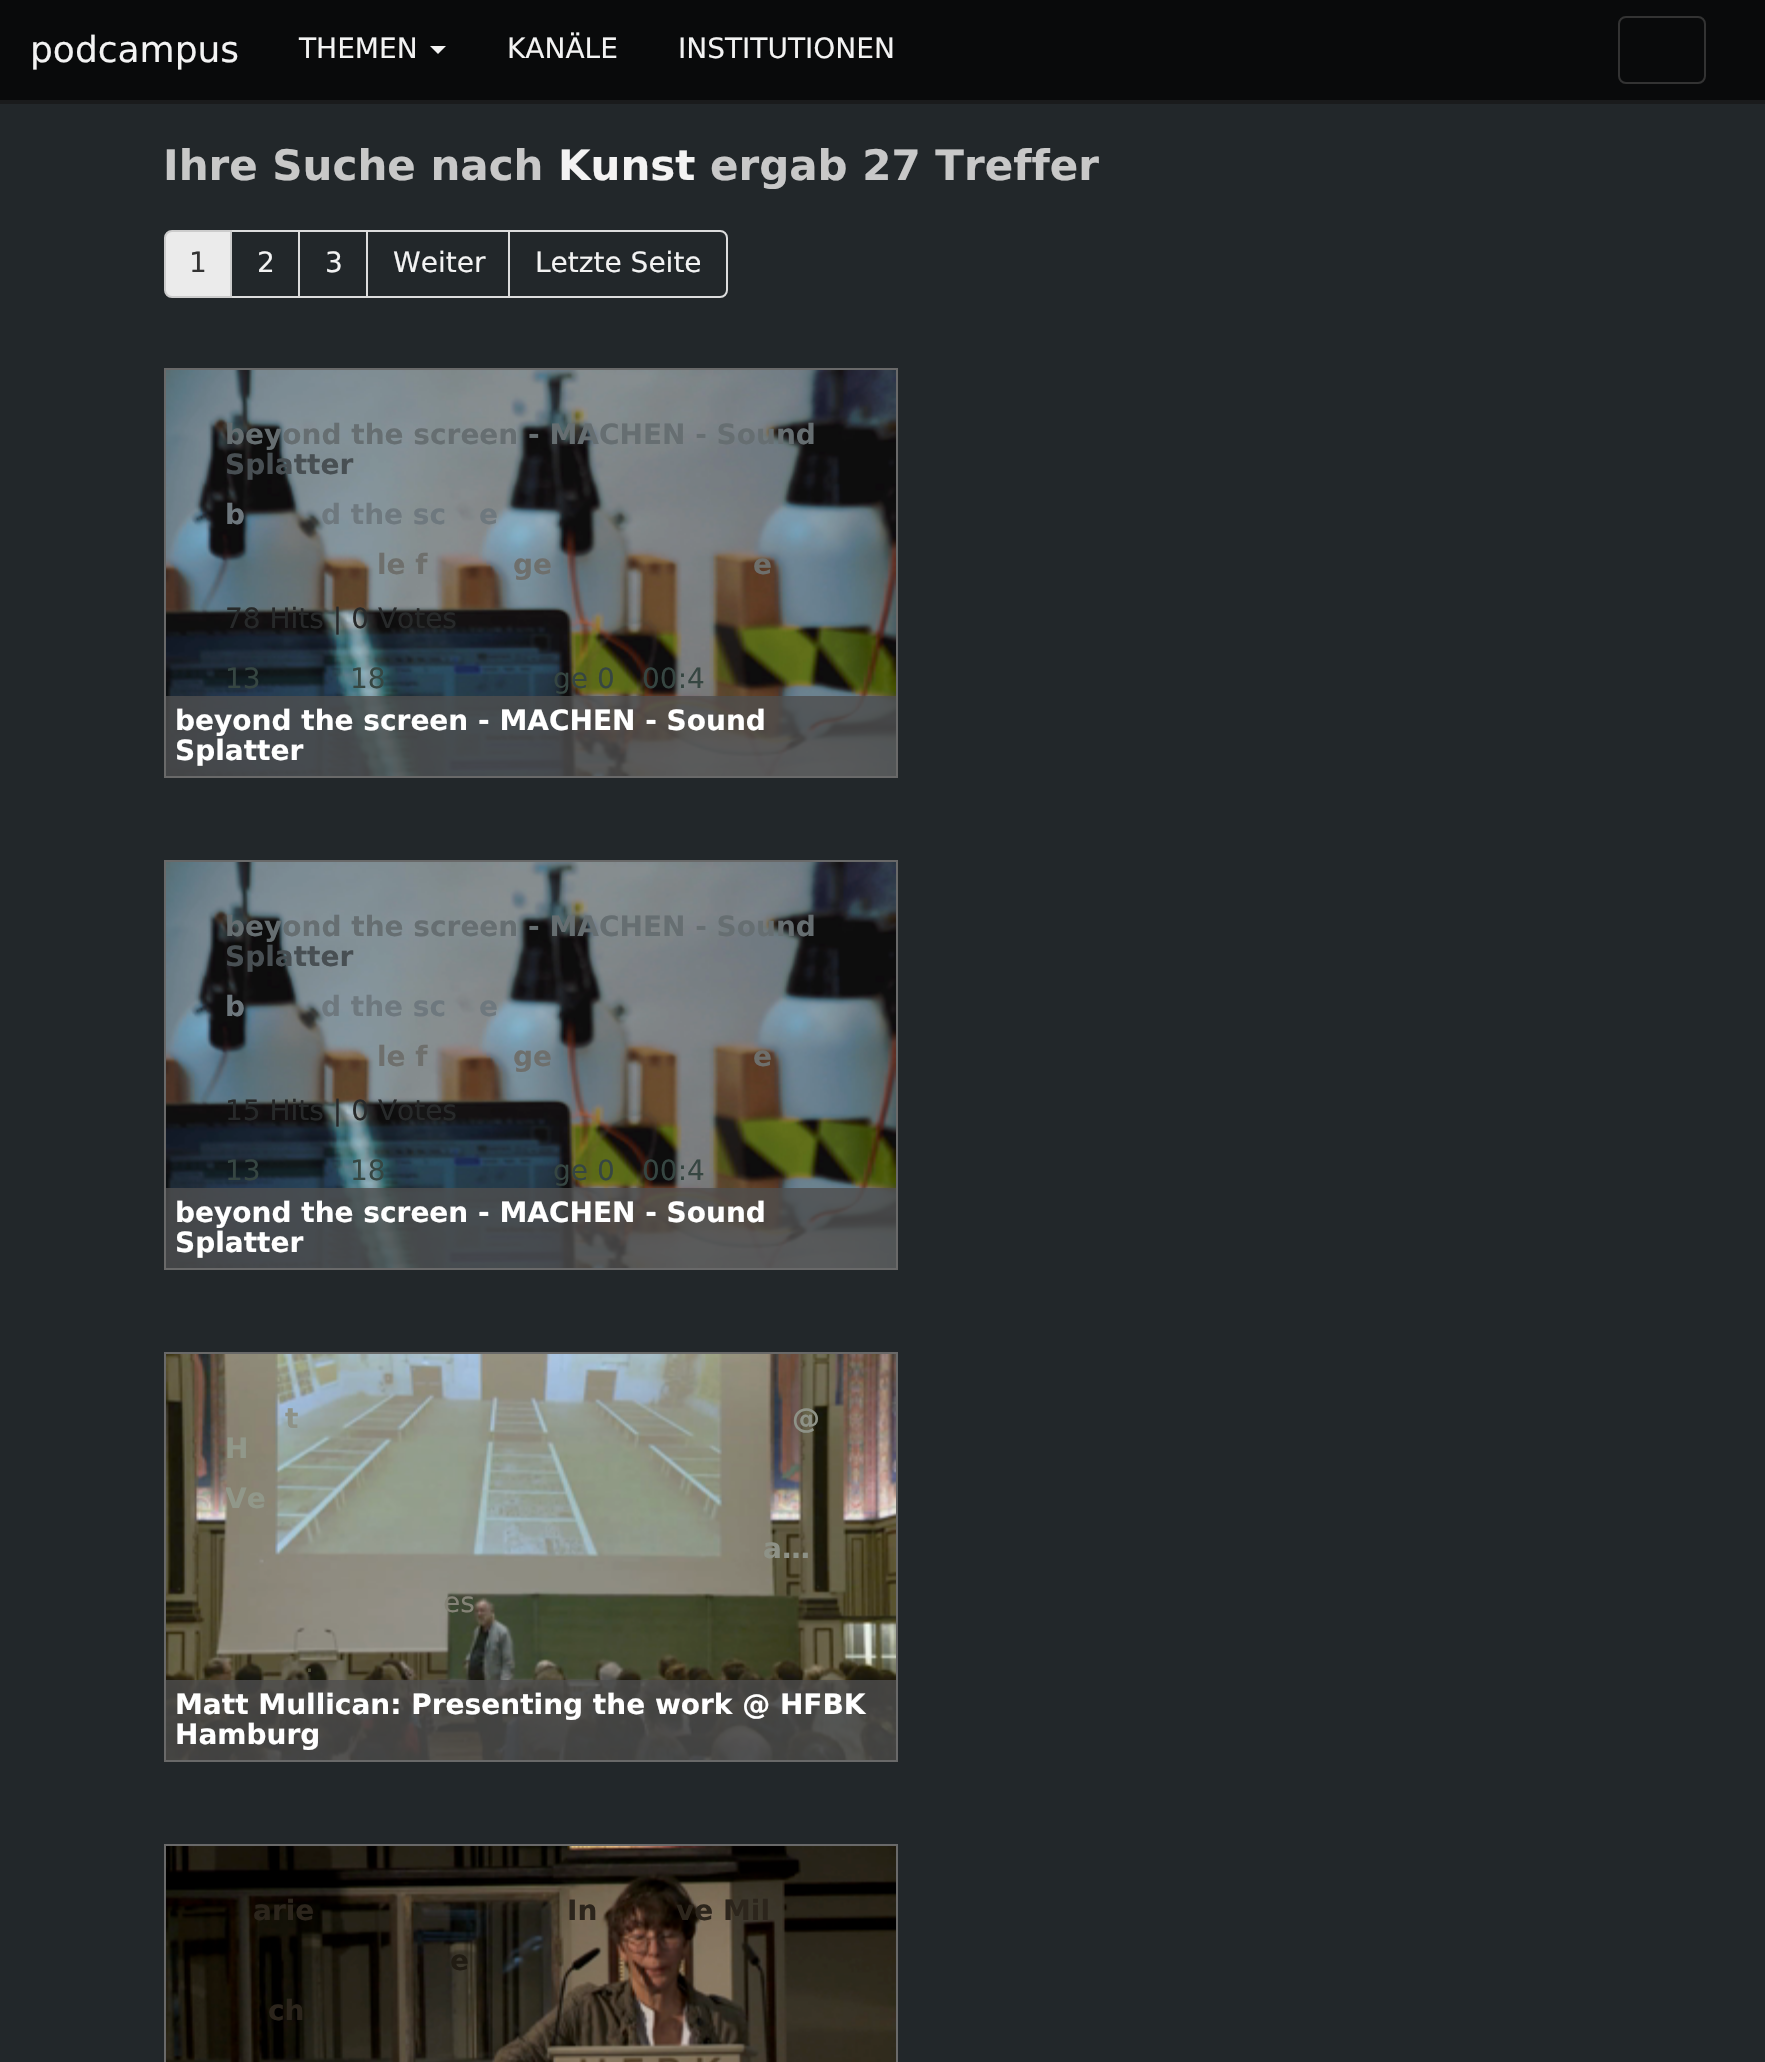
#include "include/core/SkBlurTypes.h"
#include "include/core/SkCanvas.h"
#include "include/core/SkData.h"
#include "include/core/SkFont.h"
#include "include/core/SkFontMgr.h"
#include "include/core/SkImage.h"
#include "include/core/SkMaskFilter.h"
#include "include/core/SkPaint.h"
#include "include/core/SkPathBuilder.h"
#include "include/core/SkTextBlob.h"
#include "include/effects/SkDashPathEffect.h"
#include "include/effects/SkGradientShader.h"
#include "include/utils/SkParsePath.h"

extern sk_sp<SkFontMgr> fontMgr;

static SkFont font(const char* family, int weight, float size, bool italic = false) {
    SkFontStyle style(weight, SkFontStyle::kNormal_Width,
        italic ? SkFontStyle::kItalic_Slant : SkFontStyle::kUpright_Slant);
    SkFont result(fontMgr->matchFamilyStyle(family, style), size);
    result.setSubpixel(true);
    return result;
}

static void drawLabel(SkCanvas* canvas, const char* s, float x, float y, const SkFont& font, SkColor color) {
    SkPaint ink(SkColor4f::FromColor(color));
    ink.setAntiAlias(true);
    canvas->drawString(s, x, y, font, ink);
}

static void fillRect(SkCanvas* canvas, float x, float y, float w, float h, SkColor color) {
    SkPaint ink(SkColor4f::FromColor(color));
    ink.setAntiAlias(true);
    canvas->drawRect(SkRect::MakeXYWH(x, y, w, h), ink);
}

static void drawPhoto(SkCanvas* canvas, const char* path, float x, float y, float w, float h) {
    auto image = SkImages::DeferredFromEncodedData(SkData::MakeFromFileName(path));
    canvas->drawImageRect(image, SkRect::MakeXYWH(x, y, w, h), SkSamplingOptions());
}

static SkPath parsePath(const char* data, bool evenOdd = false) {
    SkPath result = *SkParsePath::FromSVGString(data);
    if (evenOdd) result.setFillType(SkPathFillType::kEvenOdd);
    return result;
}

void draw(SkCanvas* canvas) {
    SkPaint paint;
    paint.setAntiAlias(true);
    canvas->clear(0xFF22272A);
    fillRect(canvas, 0, 0, 1765, 100, 0xFF090A0B);
    fillRect(canvas, 0, 100, 1765, 4, 0xFF1A1B1C);
    SkFont font1 = font("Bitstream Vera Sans", 400, 36);
    drawLabel(canvas, "podcampus", 30, 62, font1, 0xFFF3F3F3);
    paint.setStroke(true);
    paint.setStrokeWidth(2);
    paint.setColor(0xFF333333);
    canvas->drawRoundRect(SkRect::MakeXYWH(1619, 17, 86, 66), 7, 7, paint);
    SkFont font2 = font("Bitstream Vera Sans", 400, 28);
    drawLabel(canvas, "THEMEN", 299, 58, font2, 0xFFF3F3F3);
    paint.setStroke(false);
    paint.setColor(0xFFF3F3F3);
    canvas->drawPath(parsePath("M430 46H446L438 54Z"), paint);
    drawLabel(canvas, "KANÄLE", 507, 58, font2, 0xFFF3F3F3);
    drawLabel(canvas, "INSTITUTIONEN", 678, 58, font2, 0xFFF3F3F3);
    SkFont font3 = font("Bitstream Vera Sans", 700, 42);
    drawLabel(canvas, "Ihre Suche nach", 163, 180, font3, 0xFFC8C8C8);
    drawLabel(canvas, "Kunst", 558, 180, font3, 0xFFF3F3F3);
    drawLabel(canvas, "ergab 27 Treffer", 710, 180, font3, 0xFFC8C8C8);
    paint.setStroke(true);
    paint.setColor(0xFFDDDDDD);
    canvas->drawRect(SkRect::MakeXYWH(231, 231, 68, 66), paint);
    paint.setStroke(false);
    paint.setColor(0xFFEBEBEB);
    canvas->drawPath(parsePath("M172 231H231V297H172C168 297 165 294 165 290V238C165 234 168 231 172 231Z"), paint);
    paint.setStroke(true);
    paint.setColor(0xFFCCCCCC);
    canvas->drawPath(parsePath("M172 231H231V297H172C168 297 165 294 165 290V238C165 234 168 231 172 231Z"), paint);
    drawLabel(canvas, "1", 189, 272, font2, 0xFF333333);
    drawLabel(canvas, "2", 257, 272, font2, 0xFFF3F3F3);
    paint.setColor(0xFFDDDDDD);
    canvas->drawRect(SkRect::MakeXYWH(299, 231, 68, 66), paint);
    drawLabel(canvas, "3", 325, 272, font2, 0xFFF3F3F3);
    canvas->drawRect(SkRect::MakeXYWH(367, 231, 142, 66), paint);
    drawLabel(canvas, "Weiter", 393, 272, font2, 0xFFF3F3F3);
    canvas->drawPath(parsePath("M509 231H720C724 231 727 234 727 238V290C727 294 724 297 720 297H509Z"), paint);
    drawLabel(canvas, "Letzte Seite", 535, 272, font2, 0xFFF3F3F3);
    paint.setColor(0xFF696969);
    canvas->drawRect(SkRect::MakeXYWH(165, 369, 732, 408), paint);
    drawPhoto(canvas, "assets/img1.png", 166, 370, 730, 406);
    SkFont font4 = font("Bitstream Vera Sans", 700, 28);
    drawLabel(canvas, "beyond the screen - MACHEN - Sound", 225, 444, font4, 0xFF666E71);
    drawLabel(canvas, "Splatter", 225, 474, font4, 0xFF484F53);
    drawLabel(canvas, "b", 225, 524, font4, 0xFF6E787E);
    drawLabel(canvas, "d the sc", 321, 524, font4, 0xFF6E787E);
    drawLabel(canvas, "e", 479, 524, font4, 0xFF6E787E);
    drawLabel(canvas, "le f", 377, 574, font4, 0xFF6E6F6C);
    drawLabel(canvas, "ge", 513, 574, font4, 0xFF6E6F6C);
    drawLabel(canvas, "e", 753, 574, font4, 0xFF6E6F6C);
    drawLabel(canvas, "78 Hits | 0 Votes", 225, 628, font2, 0xFF27292A);
    drawLabel(canvas, "13", 225, 688, font2, 0xFF364642);
    drawLabel(canvas, "18", 350, 688, font2, 0xFF364642);
    drawLabel(canvas, "ge 0", 553, 688, font2, 0xFF364642);
    drawLabel(canvas, "00:4", 642, 688, font2, 0xFF364642);
    fillRect(canvas, 166, 696, 730, 80, 0xCC4E4E4E);
    drawLabel(canvas, "beyond the screen - MACHEN - Sound", 175, 730, font4, 0xFFFFFFFF);
    drawLabel(canvas, "Splatter", 175, 760, font4, 0xFFFFFFFF);
    canvas->drawRect(SkRect::MakeXYWH(165, 861, 732, 408), paint);
    drawPhoto(canvas, "assets/img1.png", 166, 862, 730, 406);
    drawLabel(canvas, "beyond the screen - MACHEN - Sound", 225, 936, font4, 0xFF666E71);
    drawLabel(canvas, "Splatter", 225, 966, font4, 0xFF484F53);
    drawLabel(canvas, "b", 225, 1016, font4, 0xFF6E787E);
    drawLabel(canvas, "d the sc", 321, 1016, font4, 0xFF6E787E);
    drawLabel(canvas, "e", 479, 1016, font4, 0xFF6E787E);
    drawLabel(canvas, "le f", 377, 1066, font4, 0xFF6E6F6C);
    drawLabel(canvas, "ge", 513, 1066, font4, 0xFF6E6F6C);
    drawLabel(canvas, "e", 753, 1066, font4, 0xFF6E6F6C);
    drawLabel(canvas, "15 Hits | 0 Votes", 225, 1120, font2, 0xFF27292A);
    drawLabel(canvas, "13", 225, 1180, font2, 0xFF364642);
    drawLabel(canvas, "18", 350, 1180, font2, 0xFF364642);
    drawLabel(canvas, "ge 0", 553, 1180, font2, 0xFF364642);
    drawLabel(canvas, "00:4", 642, 1180, font2, 0xFF364642);
    fillRect(canvas, 166, 1188, 730, 80, 0xCC4E4E4E);
    drawLabel(canvas, "beyond the screen - MACHEN - Sound", 175, 1222, font4, 0xFFFFFFFF);
    drawLabel(canvas, "Splatter", 175, 1252, font4, 0xFFFFFFFF);
    canvas->drawRect(SkRect::MakeXYWH(165, 1353, 732, 408), paint);
    drawPhoto(canvas, "assets/img2.png", 166, 1354, 730, 406);
    drawLabel(canvas, "t", 285, 1428, font4, 0xFF8E9287);
    drawLabel(canvas, "@", 792, 1428, font4, 0xFF8E9287);
    drawLabel(canvas, "H", 225, 1458, font4, 0xFF91988A);
    canvas->save();
    canvas->clipRect(SkRect::MakeXYWH(226, 1484, 610, 30));
    drawLabel(canvas, "Ve", 225, 1508, font4, 0xFF91988A);
    canvas->restore();
    drawLabel(canvas, "a…", 763, 1558, font4, 0xFF8E9287);
    drawLabel(canvas, "es", 443, 1612, font2, 0xFF858377);
    drawLabel(canvas, ".", 305, 1672, font2, 0xFF4E4D39);
    fillRect(canvas, 166, 1680, 730, 80, 0xCC4E4E4E);
    drawLabel(canvas, "Matt Mullican: Presenting the work @ HFBK", 175, 1714, font4, 0xFFFFFFFF);
    drawLabel(canvas, "Hamburg", 175, 1744, font4, 0xFFFFFFFF);
    canvas->drawRect(SkRect::MakeXYWH(165, 1845, 732, 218), paint);
    drawPhoto(canvas, "assets/img3.png", 166, 1846, 730, 216);
    drawLabel(canvas, "arie", 253, 1920, font4, 0xFF2C251C);
    drawLabel(canvas, "In", 567, 1920, font4, 0xFF2C251C);
    drawLabel(canvas, "ve Mil", 676, 1920, font4, 0xFF2C251C);
    drawLabel(canvas, "e", 450, 1970, font4, 0xFF211C13);
    drawLabel(canvas, "ch", 268, 2020, font4, 0xFF2C251C);
}
